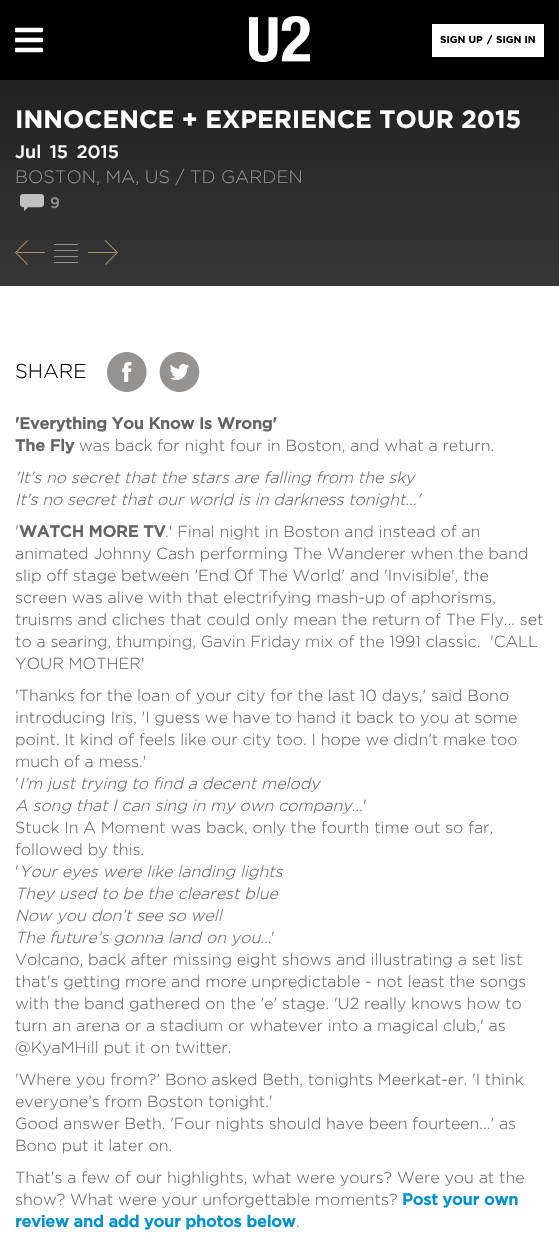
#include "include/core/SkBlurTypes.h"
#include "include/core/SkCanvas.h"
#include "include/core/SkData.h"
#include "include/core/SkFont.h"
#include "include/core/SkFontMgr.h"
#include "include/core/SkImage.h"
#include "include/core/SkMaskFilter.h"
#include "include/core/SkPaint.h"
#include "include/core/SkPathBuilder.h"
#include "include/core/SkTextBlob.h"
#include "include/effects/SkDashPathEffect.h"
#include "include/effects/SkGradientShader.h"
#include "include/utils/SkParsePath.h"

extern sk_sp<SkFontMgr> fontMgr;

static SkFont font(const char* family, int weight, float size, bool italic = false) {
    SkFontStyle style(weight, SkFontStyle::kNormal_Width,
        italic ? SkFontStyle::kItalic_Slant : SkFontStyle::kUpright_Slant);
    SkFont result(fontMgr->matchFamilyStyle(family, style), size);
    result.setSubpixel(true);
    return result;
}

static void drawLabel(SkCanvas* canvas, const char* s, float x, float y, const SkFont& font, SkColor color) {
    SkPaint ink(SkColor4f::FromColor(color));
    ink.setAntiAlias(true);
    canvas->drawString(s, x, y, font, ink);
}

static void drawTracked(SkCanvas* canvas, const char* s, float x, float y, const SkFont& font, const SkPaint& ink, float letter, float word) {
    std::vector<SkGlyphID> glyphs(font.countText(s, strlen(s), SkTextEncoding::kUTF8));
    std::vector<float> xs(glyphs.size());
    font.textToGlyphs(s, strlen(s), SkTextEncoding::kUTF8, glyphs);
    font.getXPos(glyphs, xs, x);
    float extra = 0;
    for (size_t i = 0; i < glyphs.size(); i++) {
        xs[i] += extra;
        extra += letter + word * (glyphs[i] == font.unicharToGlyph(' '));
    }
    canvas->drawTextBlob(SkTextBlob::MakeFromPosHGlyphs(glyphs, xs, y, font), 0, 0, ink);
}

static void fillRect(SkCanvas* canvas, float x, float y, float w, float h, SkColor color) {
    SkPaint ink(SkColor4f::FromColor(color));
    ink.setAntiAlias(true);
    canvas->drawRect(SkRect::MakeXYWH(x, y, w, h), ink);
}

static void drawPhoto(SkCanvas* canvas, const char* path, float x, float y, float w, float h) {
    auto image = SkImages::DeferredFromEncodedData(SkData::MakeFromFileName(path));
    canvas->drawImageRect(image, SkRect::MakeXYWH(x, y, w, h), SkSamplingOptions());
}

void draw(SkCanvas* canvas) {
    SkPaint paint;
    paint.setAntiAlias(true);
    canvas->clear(0xFFFFFFFF);
    fillRect(canvas, 0, 0, 559, 80, 0xFF000000);
    drawPhoto(canvas, "assets/img1.png", 15, 27, 28, 26);
    drawPhoto(canvas, "assets/img2.png", 249, 16, 61, 46);
    fillRect(canvas, 432, 24, 112, 33, 0xFFFFFFFF);
    SkFont font1 = font("Gotham", 700, 10);
    drawLabel(canvas, "SIGN UP", 440, 43, font1, 0xFF000000);
    drawLabel(canvas, "/", 487, 43, font1, 0xFF000000);
    fillRect(canvas, 492, 35, 1, 1, 0xFFFFFFFF);
    drawLabel(canvas, "SIGN IN", 496, 43, font1, 0xFF000000);
    {
        const SkColor colors[] = {0xFF212121, 0xFF373737};
        const float stops[] = {0, 1};
        const SkPoint ends[] = {{280, 80}, {280, 286}};
        paint.setShader(SkGradientShader::MakeLinear(ends, colors, stops, 2, SkTileMode::kClamp));
        paint.setAlpha(255);
    }
    canvas->drawRect(SkRect::MakeXYWH(0, 80, 559, 206), paint);
    SkFont font2 = font("Gotham", 700, 25);
    drawLabel(canvas, "INNOCENCE + EXPERIENCE TOUR 2015", 15, 128, font2, 0xFFFFFFFF);
    SkFont font3 = font("Gotham", 500, 18);
    paint.setShader(nullptr);
    paint.setColor(0xFFFFFFFF);
    drawTracked(canvas, "Jul 15 2015", 15, 158, font3, paint, 0, 3);
    SkFont font4 = font("Gotham", 300, 18);
    drawLabel(canvas, "BOSTON, MA, US / TD GARDEN", 15, 183, font4, 0xFF959391);
    drawPhoto(canvas, "assets/img3.png", 20, 194, 24, 17);
    SkFont font5 = font("Gotham", 500, 15);
    drawLabel(canvas, "9", 50, 208, font5, 0xFF959391);
    drawPhoto(canvas, "assets/img4.png", 15, 240, 30, 25);
    drawPhoto(canvas, "assets/img5.png", 54, 244, 24, 19);
    drawPhoto(canvas, "assets/img6.png", 88, 240, 30, 25);
    SkFont font6 = font("Gotham", 300, 20);
    drawLabel(canvas, "SHARE", 15, 378, font6, 0xFF000000);
    drawPhoto(canvas, "assets/img7.png", 107, 352, 40, 40);
    drawPhoto(canvas, "assets/img8.png", 159, 352, 41, 40);
    SkFont font7 = font("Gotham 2", 700, 16);
    drawLabel(canvas, "'Everything You Know Is Wrong'", 15, 429, font7, 0xFF676563);
    drawLabel(canvas, "The Fly", 15, 451, font7, 0xFF676563);
    SkFont font8 = font("Gotham", 300, 16);
    drawLabel(canvas, "was back for night four in Boston, and what a return.", 79, 451, font8, 0xFF676563);
    SkFont font9 = font("Gotham", 300, 16, true);
    drawLabel(canvas, "'It's no secret that the stars are falling from the sky", 15, 483, font9, 0xFF676563);
    drawLabel(canvas, "It's no secret that our world is in darkness tonight...'", 15, 505, font9, 0xFF676563);
    drawLabel(canvas, "'", 15, 537, font8, 0xFF676563);
    drawLabel(canvas, "WATCH MORE TV", 19, 537, font7, 0xFF676563);
    drawLabel(canvas, ".' Final night in Boston and instead of an", 165, 537, font8, 0xFF676563);
    drawLabel(canvas, "animated Johnny Cash performing The Wanderer when the band", 15, 559, font8, 0xFF676563);
    drawLabel(canvas, "slip off stage between 'End Of The World' and 'Invisible', the", 15, 581, font8, 0xFF676563);
    drawLabel(canvas, "screen was alive with that electrifying mash-up of aphorisms,", 15, 603, font8, 0xFF676563);
    drawLabel(canvas, "truisms and cliches that could only mean the return of The Fly... set", 15, 625, font8, 0xFF676563);
    drawLabel(canvas, "to a searing, thumping, Gavin Friday mix of the 1991 classic.  'CALL", 15, 647, font8, 0xFF676563);
    drawLabel(canvas, "YOUR MOTHER'", 15, 669, font8, 0xFF676563);
    drawLabel(canvas, "'Thanks for the loan of your city for the last 10 days,' said Bono", 15, 701, font8, 0xFF676563);
    drawLabel(canvas, "introducing Iris, 'I guess we have to hand it back to you at some", 15, 723, font8, 0xFF676563);
    drawLabel(canvas, "point. It kind of feels like our city too. I hope we didn’t make too", 15, 745, font8, 0xFF676563);
    drawLabel(canvas, "much of a mess.'", 15, 767, font8, 0xFF676563);
    drawLabel(canvas, "'", 15, 789, font8, 0xFF676563);
    drawLabel(canvas, "I'm just trying to find a decent melody", 19, 789, font9, 0xFF676563);
    drawLabel(canvas, "A song that I can sing in my own company...", 15, 811, font9, 0xFF676563);
    drawLabel(canvas, "'", 363, 811, font8, 0xFF676563);
    drawLabel(canvas, "Stuck In A Moment was back, only the fourth time out so far,", 15, 833, font8, 0xFF676563);
    drawLabel(canvas, "followed by this.", 15, 855, font8, 0xFF676563);
    drawLabel(canvas, "'", 15, 877, font8, 0xFF676563);
    drawLabel(canvas, "Your eyes were like landing lights", 19, 877, font9, 0xFF676563);
    drawLabel(canvas, "They used to be the clearest blue", 15, 899, font9, 0xFF676563);
    drawLabel(canvas, "Now you don’t see so well", 15, 921, font9, 0xFF676563);
    drawLabel(canvas, "The future’s gonna land on you...", 15, 943, font9, 0xFF676563);
    drawLabel(canvas, "'", 271, 943, font8, 0xFF676563);
    drawLabel(canvas, "Volcano, back after missing eight shows and illustrating a set list", 15, 965, font8, 0xFF676563);
    drawLabel(canvas, "that's getting more and more unpredictable - not least the songs", 15, 987, font8, 0xFF676563);
    drawLabel(canvas, "with the band gathered on the 'e' stage. 'U2 really knows how to", 15, 1009, font8, 0xFF676563);
    drawLabel(canvas, "turn an arena or a stadium or whatever into a magical club,' as", 15, 1031, font8, 0xFF676563);
    drawLabel(canvas, "@KyaMHill put it on twitter.", 15, 1053, font8, 0xFF676563);
    drawLabel(canvas, "'Where you from?' Bono asked Beth, tonights Meerkat-er. 'I think", 15, 1085, font8, 0xFF676563);
    drawLabel(canvas, "everyone’s from Boston tonight.'", 15, 1107, font8, 0xFF676563);
    drawLabel(canvas, "Good answer Beth. 'Four nights should have been fourteen...' as", 15, 1129, font8, 0xFF676563);
    drawLabel(canvas, "Bono put it later on.", 15, 1151, font8, 0xFF676563);
    drawLabel(canvas, "That's a few of our highlights, what were yours? Were you at the", 15, 1183, font8, 0xFF676563);
    drawLabel(canvas, "show? What were your unforgettable moments?", 15, 1205, font8, 0xFF676563);
    drawLabel(canvas, "Post your own", 402, 1205, font7, 0xFF0093CB);
    drawLabel(canvas, "review and add your photos below", 15, 1227, font7, 0xFF0093CB);
    drawLabel(canvas, ".", 296, 1227, font8, 0xFF676563);
}
